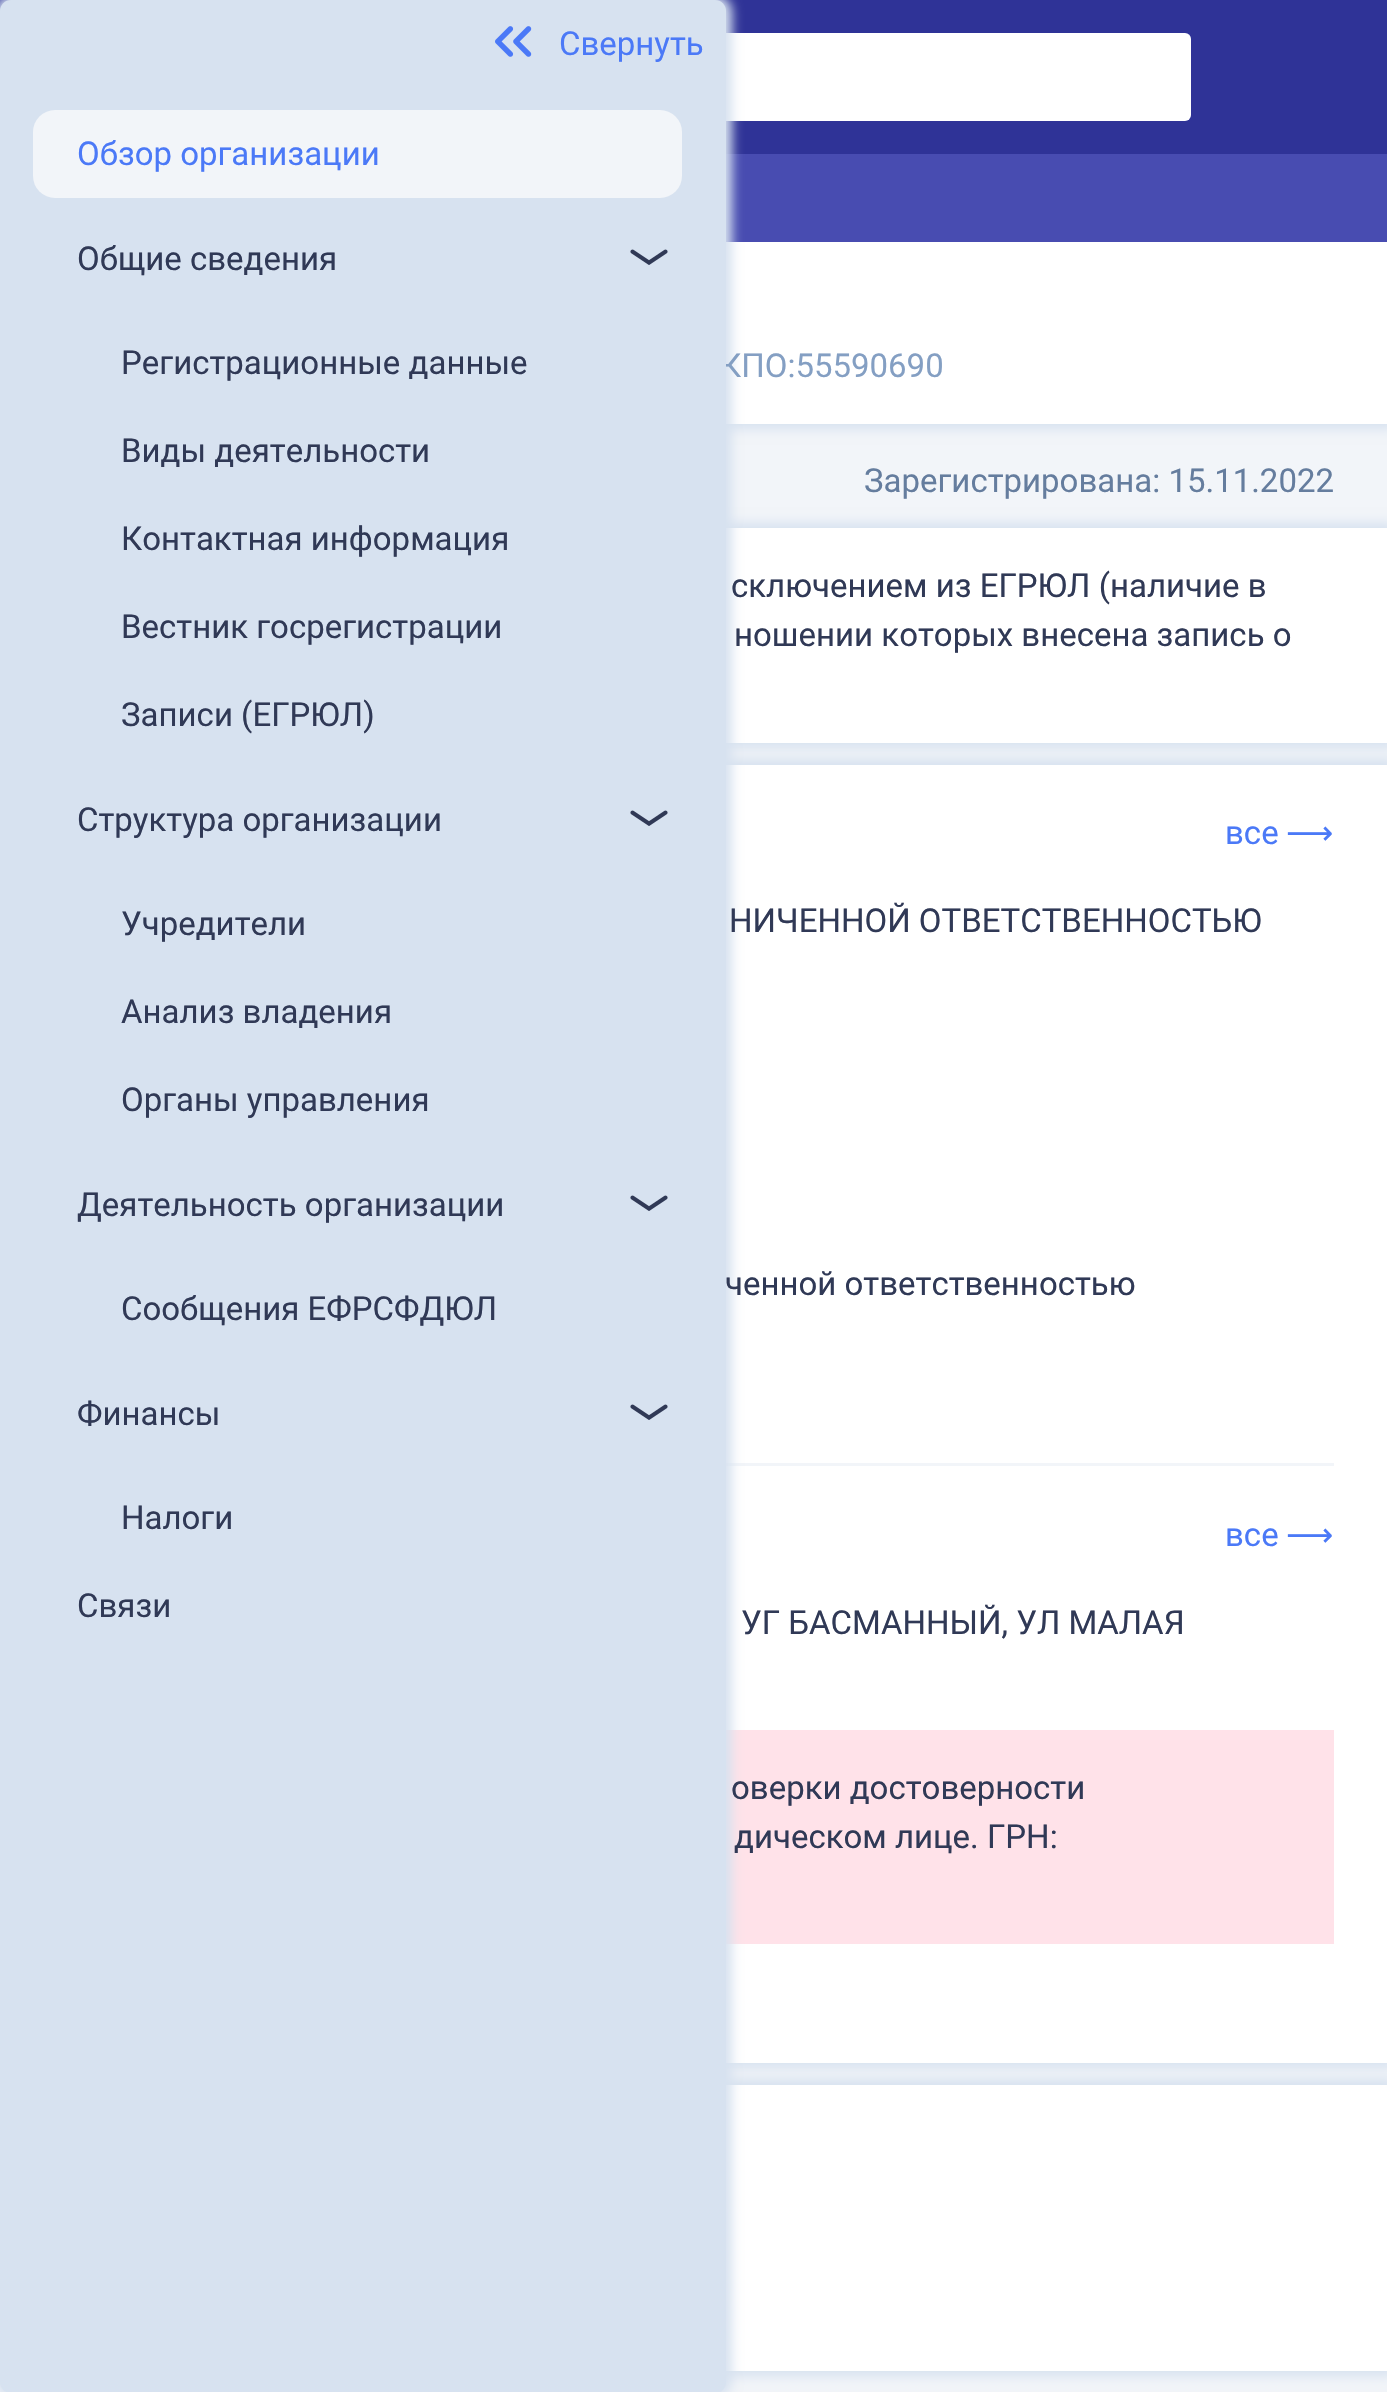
#include "include/core/SkBlurTypes.h"
#include "include/core/SkCanvas.h"
#include "include/core/SkData.h"
#include "include/core/SkFont.h"
#include "include/core/SkFontMgr.h"
#include "include/core/SkImage.h"
#include "include/core/SkMaskFilter.h"
#include "include/core/SkPaint.h"
#include "include/core/SkPathBuilder.h"
#include "include/core/SkTextBlob.h"
#include "include/effects/SkDashPathEffect.h"
#include "include/effects/SkGradientShader.h"
#include "include/utils/SkParsePath.h"

extern sk_sp<SkFontMgr> fontMgr;

static SkFont font(const char* family, int weight, float size, bool italic = false) {
    SkFontStyle style(weight, SkFontStyle::kNormal_Width,
        italic ? SkFontStyle::kItalic_Slant : SkFontStyle::kUpright_Slant);
    SkFont result(fontMgr->matchFamilyStyle(family, style), size);
    result.setSubpixel(true);
    return result;
}

static void drawLabel(SkCanvas* canvas, const char* s, float x, float y, const SkFont& font, SkColor color) {
    SkPaint ink(SkColor4f::FromColor(color));
    ink.setAntiAlias(true);
    canvas->drawString(s, x, y, font, ink);
}

static void fillRect(SkCanvas* canvas, float x, float y, float w, float h, SkColor color) {
    SkPaint ink(SkColor4f::FromColor(color));
    ink.setAntiAlias(true);
    canvas->drawRect(SkRect::MakeXYWH(x, y, w, h), ink);
}

static void fillRRect(SkCanvas* canvas, float x, float y, float w, float h, float radius, SkColor color) {
    SkPaint ink(SkColor4f::FromColor(color));
    ink.setAntiAlias(true);
    canvas->drawRoundRect(SkRect::MakeXYWH(x, y, w, h), radius, radius, ink);
}

static void drawPhoto(SkCanvas* canvas, const char* path, float x, float y, float w, float h) {
    auto image = SkImages::DeferredFromEncodedData(SkData::MakeFromFileName(path));
    canvas->drawImageRect(image, SkRect::MakeXYWH(x, y, w, h), SkSamplingOptions());
}

void draw(SkCanvas* canvas) {
    SkPaint paint;
    paint.setAntiAlias(true);
    canvas->clear(0xFFF2F5F9);
    fillRect(canvas, 0, 0, 1387, 154, 0xFF2F3397);
    paint.setColor(0xFFD7E2F0);
    paint.setMaskFilter(SkMaskFilter::MakeBlur(kNormal_SkBlurStyle, 5.5f));
    canvas->drawRect(SkRect::MakeXYWH(-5, 237, 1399, 192), paint);
    paint.setMaskFilter(nullptr);
    fillRect(canvas, 726, 154, 661, 88, 0xFF484CB1);
    fillRect(canvas, 726, 242, 661, 182, 0xFFFFFFFF);
    paint.setMaskFilter(SkMaskFilter::MakeBlur(kNormal_SkBlurStyle, 5.5f));
    canvas->drawRect(SkRect::MakeXYWH(-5, 523, 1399, 225), paint);
    paint.setMaskFilter(nullptr);
    fillRect(canvas, 726, 528, 661, 215, 0xFFFFFFFF);
    paint.setMaskFilter(SkMaskFilter::MakeBlur(kNormal_SkBlurStyle, 5.5f));
    canvas->drawRect(SkRect::MakeXYWH(-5, 759, 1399, 1309), paint);
    paint.setMaskFilter(nullptr);
    fillRect(canvas, 726, 765, 661, 1298, 0xFFFFFFFF);
    fillRect(canvas, 726, 1463, 608, 3, 0xFFF2F5F9);
    fillRect(canvas, 726, 1730, 608, 214, 0xFFFFE2E9);
    paint.setMaskFilter(SkMaskFilter::MakeBlur(kNormal_SkBlurStyle, 5.5f));
    canvas->drawRect(SkRect::MakeXYWH(-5, 2079, 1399, 297), paint);
    paint.setMaskFilter(nullptr);
    fillRect(canvas, 726, 2085, 661, 286, 0xFFFFFFFF);
    fillRRect(canvas, 418, 33, 773, 88, 6, 0xFFFFFFFF);
    paint.setMaskFilter(SkMaskFilter::MakeBlur(kNormal_SkBlurStyle, 5.5f));
    canvas->drawRoundRect(SkRect::MakeXYWH(-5, -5, 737, 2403), 17, 17, paint);
    paint.setMaskFilter(nullptr);
    SkFont font1 = font("Roboto", 400, 33);
    drawLabel(canvas, "КПО:55590690", 720, 377, font1, 0xFF849FC3);
    fillRRect(canvas, 0, 0, 726, 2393, 11, 0xFFD7E2F0);
    drawPhoto(canvas, "assets/img1.png", 495, 26, 37, 31);
    drawLabel(canvas, "Свернуть", 559, 55, font1, 0xFF4B79F7);
    fillRRect(canvas, 33, 110, 649, 88, 22, 0xFFF2F5F9);
    drawLabel(canvas, "Обзор организации", 77, 165, font1, 0xFF4B79F7);
    drawLabel(canvas, "Общие сведения", 77, 270, font1, 0xFF303956);
    drawPhoto(canvas, "assets/img2.png", 630, 249, 38, 16);
    drawLabel(canvas, "Регистрационные данные", 121, 374, font1, 0xFF303956);
    drawLabel(canvas, "Виды деятельности", 121, 462, font1, 0xFF303956);
    drawLabel(canvas, "Контактная информация", 121, 550, font1, 0xFF303956);
    drawLabel(canvas, "Вестник госрегистрации", 121, 638, font1, 0xFF303956);
    drawLabel(canvas, "Записи (ЕГРЮЛ)", 121, 726, font1, 0xFF303956);
    drawLabel(canvas, "Структура организации", 77, 831, font1, 0xFF303956);
    drawPhoto(canvas, "assets/img2.png", 630, 810, 38, 16);
    drawLabel(canvas, "Учредители", 121, 935, font1, 0xFF303956);
    drawLabel(canvas, "Анализ владения", 121, 1023, font1, 0xFF303956);
    drawLabel(canvas, "Органы управления", 121, 1111, font1, 0xFF303956);
    drawLabel(canvas, "Деятельность организации", 77, 1216, font1, 0xFF303956);
    drawPhoto(canvas, "assets/img2.png", 630, 1195, 38, 16);
    drawLabel(canvas, "Сообщения ЕФРСФДЮЛ", 121, 1320, font1, 0xFF303956);
    drawLabel(canvas, "Финансы", 77, 1425, font1, 0xFF303956);
    drawPhoto(canvas, "assets/img2.png", 630, 1404, 38, 16);
    drawLabel(canvas, "Налоги", 121, 1529, font1, 0xFF303956);
    drawLabel(canvas, "Связи", 77, 1617, font1, 0xFF303956);
    drawLabel(canvas, "Зарегистрирована: 15.11.2022", 864, 492, font1, 0xFF657D9E);
    drawLabel(canvas, "сключением из ЕГРЮЛ (наличие в", 731, 597, font1, 0xFF303956);
    drawLabel(canvas, "ношении которых внесена запись о", 734, 646, font1, 0xFF303956);
    drawLabel(canvas, "все", 1225, 844, font1, 0xFF4B79F7);
    SkFont font2 = font("DejaVu Sans", 400, 33);
    drawLabel(canvas, "⟶", 1286, 844, font2, 0xFF4B79F7);
    drawLabel(canvas, "НИЧЕННОЙ ОТВЕТСТВЕННОСТЬЮ", 729, 932, font1, 0xFF303956);
    drawLabel(canvas, "ченной ответственностью", 725, 1295, font1, 0xFF303956);
    drawLabel(canvas, "все", 1225, 1546, font1, 0xFF4B79F7);
    drawLabel(canvas, "⟶", 1286, 1546, font2, 0xFF4B79F7);
    drawLabel(canvas, "УГ БАСМАННЫЙ, УЛ МАЛАЯ", 741, 1634, font1, 0xFF303956);
    drawLabel(canvas, "оверки достоверности", 731, 1799, font1, 0xFF303956);
    drawLabel(canvas, "дическом лице. ГРН:", 734, 1848, font1, 0xFF303956);
}
